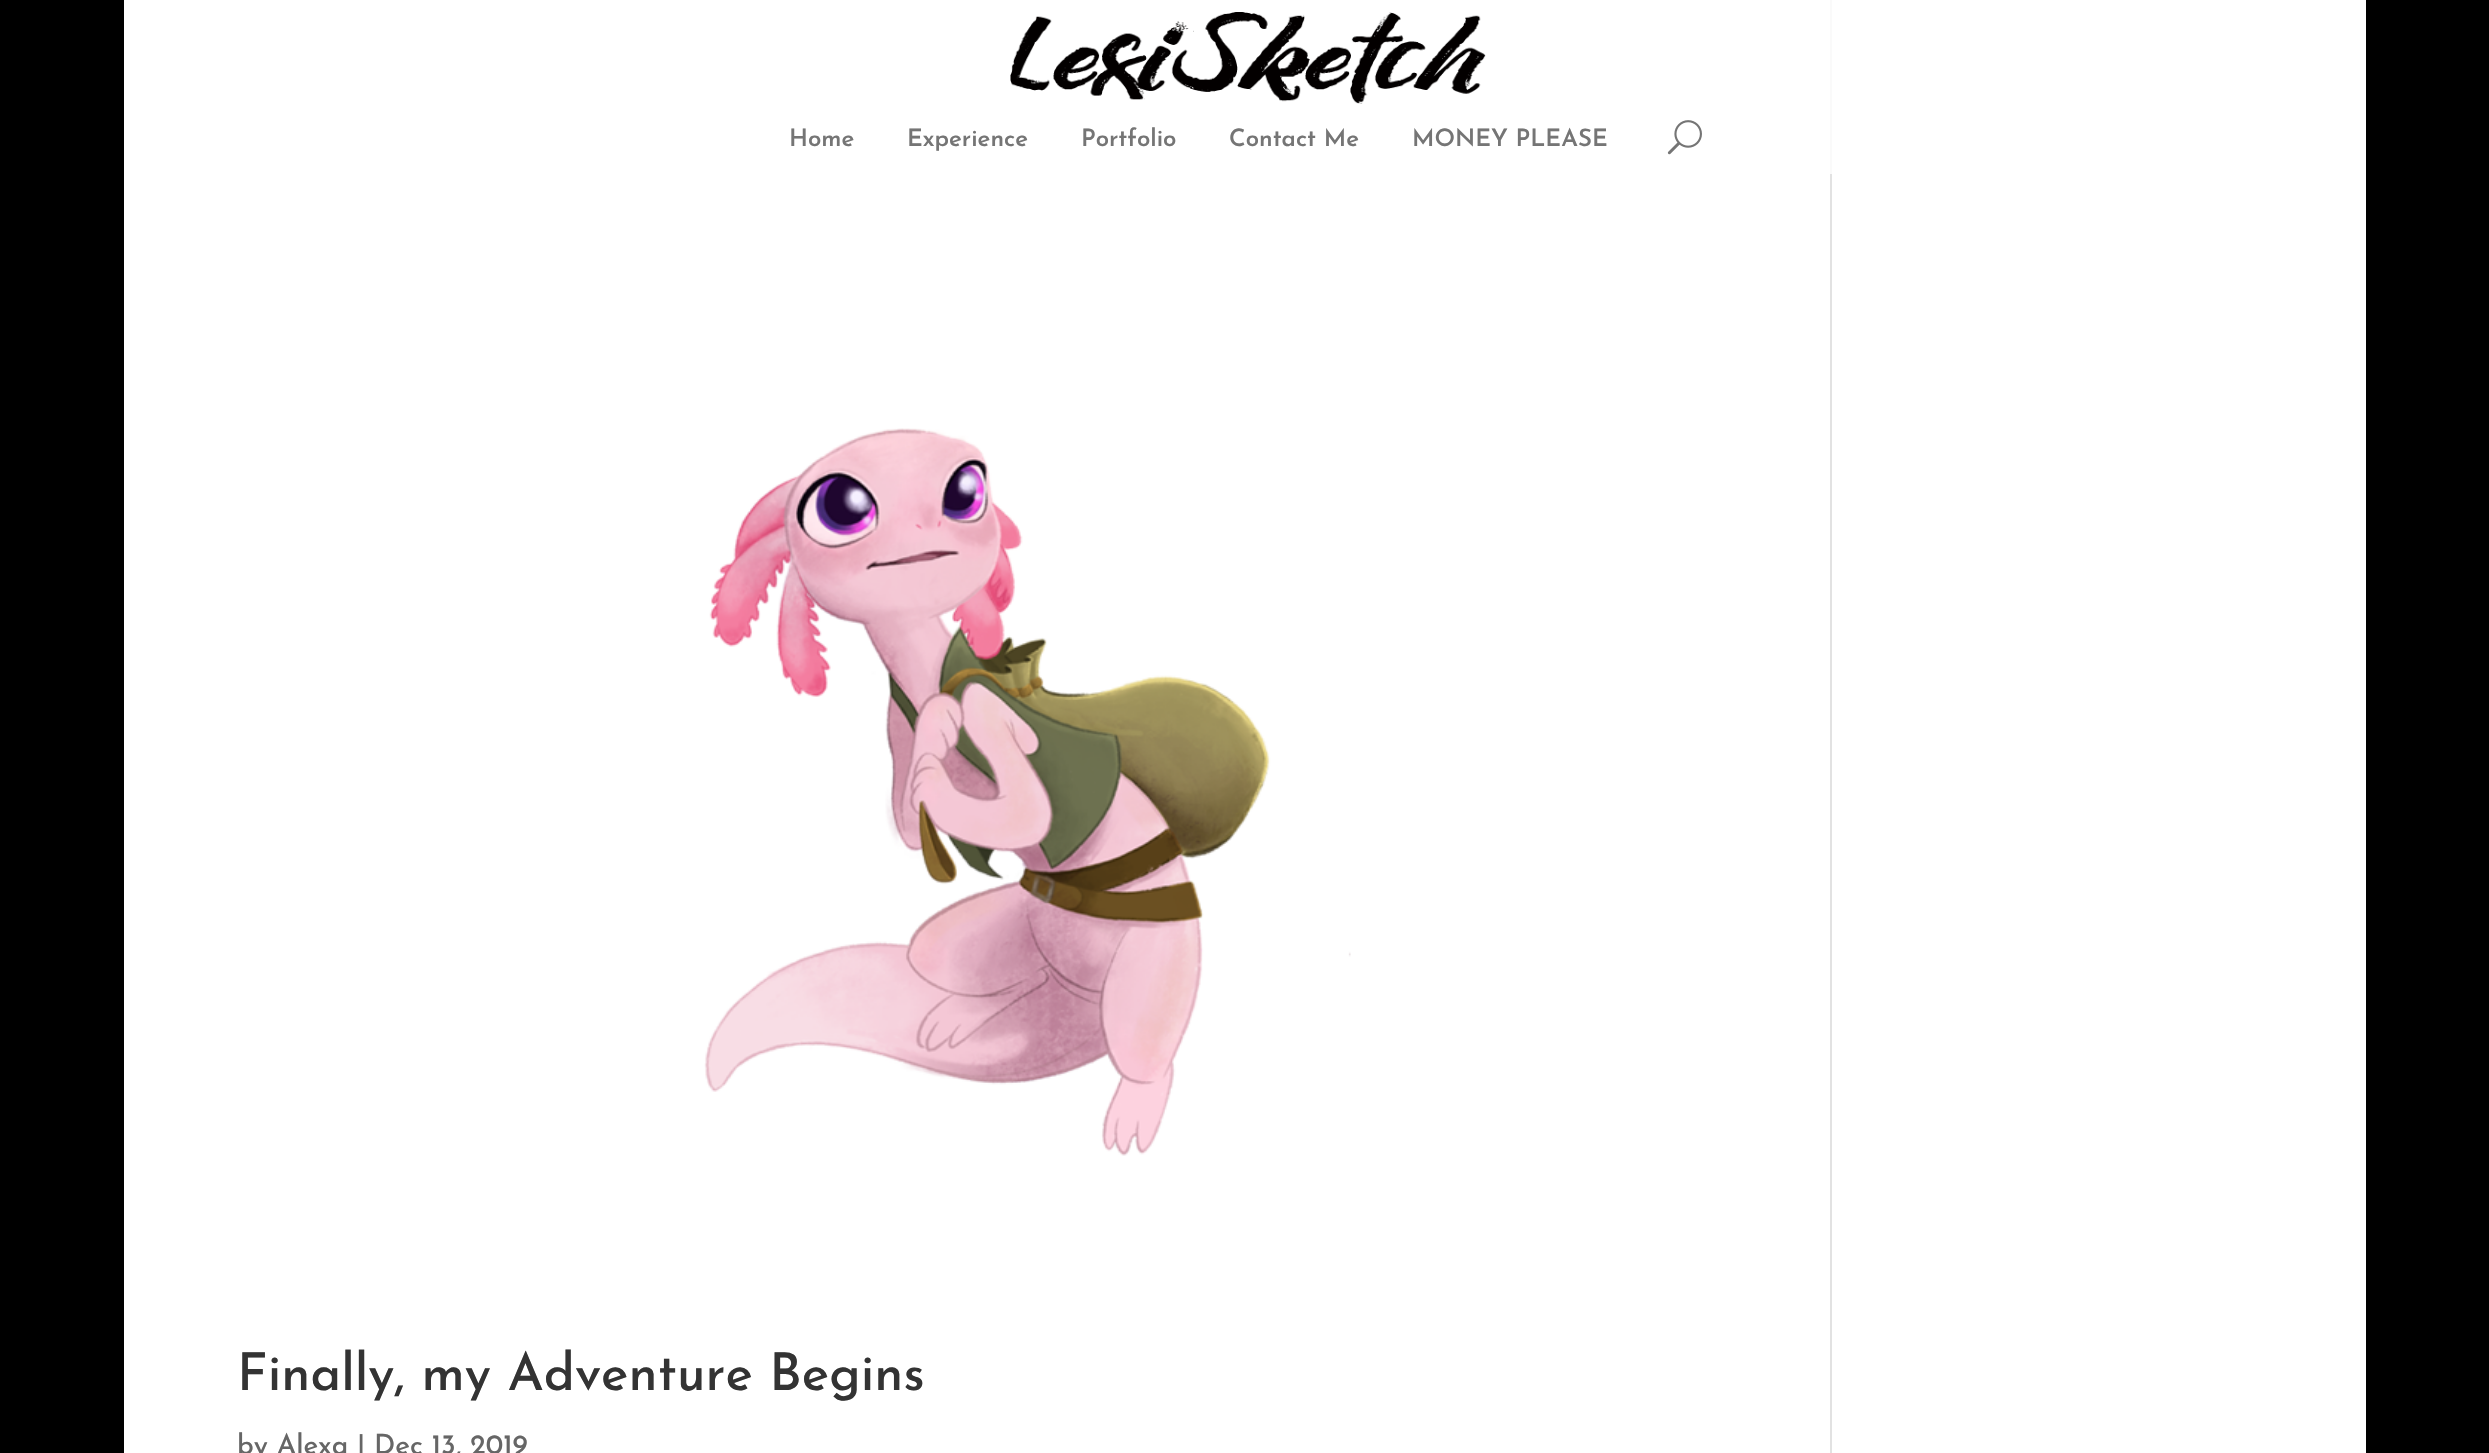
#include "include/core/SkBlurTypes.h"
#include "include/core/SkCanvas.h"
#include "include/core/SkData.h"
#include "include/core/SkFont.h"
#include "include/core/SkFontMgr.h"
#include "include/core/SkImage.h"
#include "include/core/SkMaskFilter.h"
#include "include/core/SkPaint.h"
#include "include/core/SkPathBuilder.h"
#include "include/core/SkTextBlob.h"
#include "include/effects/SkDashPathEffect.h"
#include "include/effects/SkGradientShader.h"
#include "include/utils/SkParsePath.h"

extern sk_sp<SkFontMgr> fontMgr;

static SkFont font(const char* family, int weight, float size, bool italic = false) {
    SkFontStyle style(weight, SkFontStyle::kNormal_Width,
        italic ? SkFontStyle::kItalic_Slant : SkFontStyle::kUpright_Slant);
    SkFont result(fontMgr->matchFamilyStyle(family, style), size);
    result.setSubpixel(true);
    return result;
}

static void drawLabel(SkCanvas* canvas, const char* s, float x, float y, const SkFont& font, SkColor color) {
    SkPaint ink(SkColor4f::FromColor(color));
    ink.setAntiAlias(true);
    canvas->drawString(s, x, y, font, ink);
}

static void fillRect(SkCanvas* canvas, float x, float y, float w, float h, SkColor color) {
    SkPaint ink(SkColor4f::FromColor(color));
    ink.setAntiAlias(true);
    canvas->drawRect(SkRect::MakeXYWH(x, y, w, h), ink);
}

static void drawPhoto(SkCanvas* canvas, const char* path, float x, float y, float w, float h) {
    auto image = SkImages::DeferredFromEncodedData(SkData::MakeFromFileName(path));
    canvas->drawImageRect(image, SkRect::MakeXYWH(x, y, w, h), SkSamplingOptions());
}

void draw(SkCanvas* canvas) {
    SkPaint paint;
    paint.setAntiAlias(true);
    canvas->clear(0xFF000000);
    fillRect(canvas, 124, 0, 2242, 1453, 0xFFFFFFFF);
    drawPhoto(canvas, "assets/img1.png", 1010, 12, 476, 92);
    SkFont font1 = font("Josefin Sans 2", 100, 24);
    drawLabel(canvas, "Home", 789, 146, font1, 0xFF757575);
    drawLabel(canvas, "Experience", 907, 146, font1, 0xFF757575);
    drawLabel(canvas, "Portfolio", 1081, 146, font1, 0xFF757575);
    drawLabel(canvas, "Contact Me", 1229, 146, font1, 0xFF757575);
    drawLabel(canvas, "MONEY PLEASE", 1412, 146, font1, 0xFF757575);
    drawPhoto(canvas, "assets/img2.png", 1667, 120, 35, 35);
    drawPhoto(canvas, "assets/img3.png", 704, 428, 647, 728);
    SkFont font2 = font("Josefin Sans", 100, 52);
    drawLabel(canvas, "Finally, my Adventure Begins", 237, 1390, font2, 0xFF333333);
    SkFont font3 = font("Josefin Sans", 100, 28);
    drawLabel(canvas, "by Alexa | Dec 13, 2019", 237, 1454, font3, 0xFF666666);
    fillRect(canvas, 1830, 174, 2, 1279, 0xFFE2E2E2);
    fillRect(canvas, 1830, 0, 2, 174, 0xFFFAFAFA);
}
